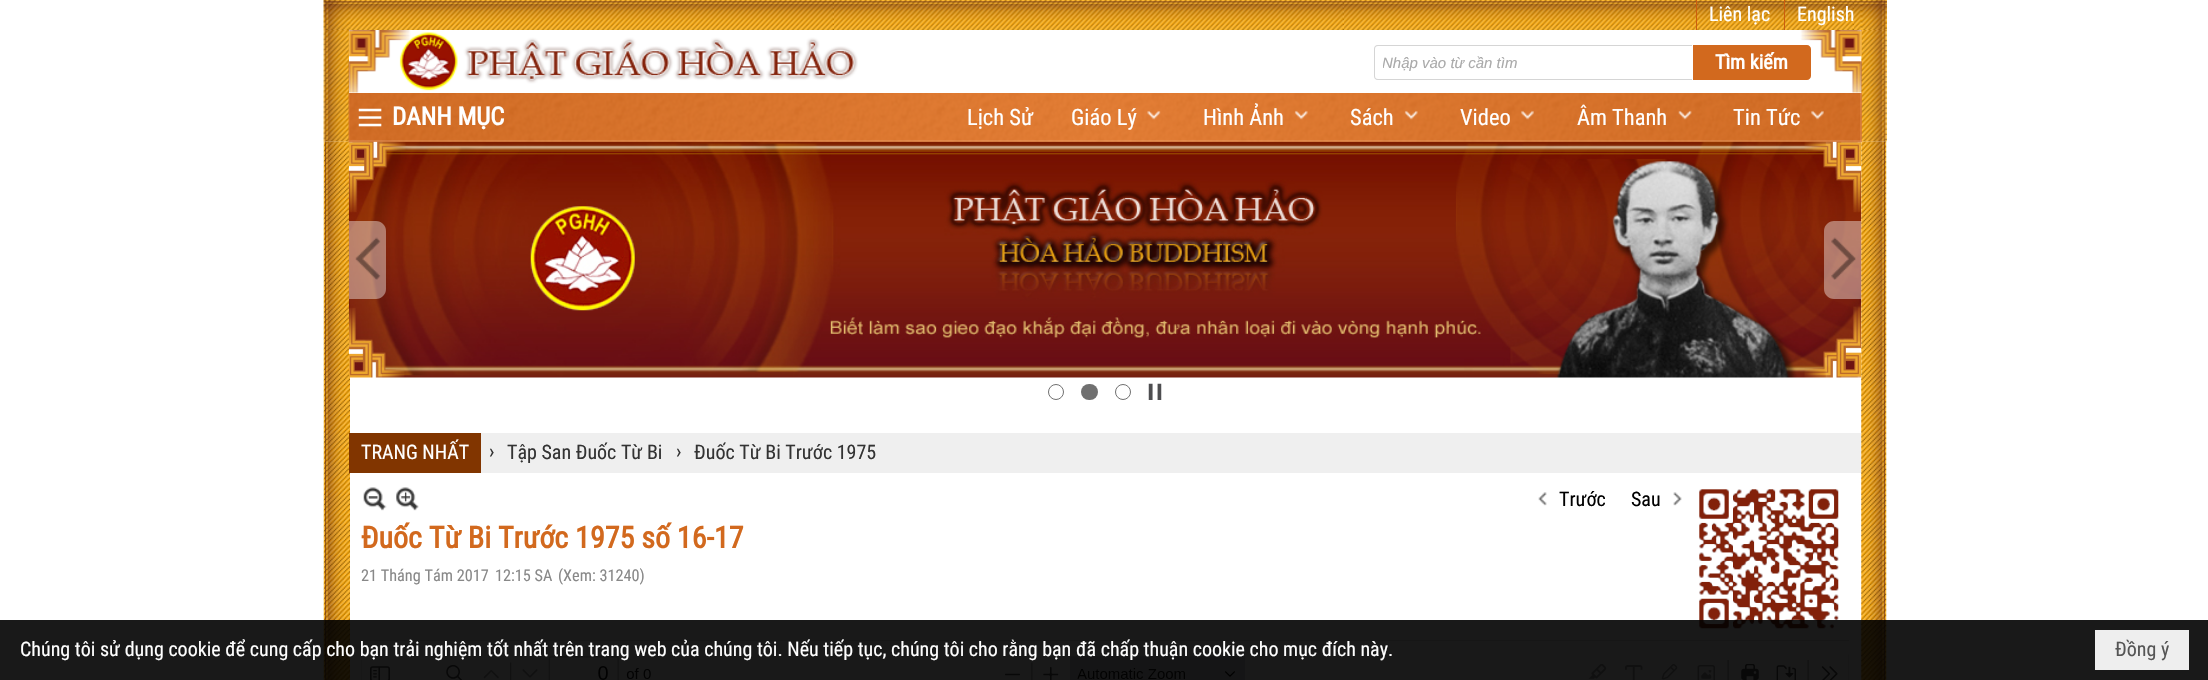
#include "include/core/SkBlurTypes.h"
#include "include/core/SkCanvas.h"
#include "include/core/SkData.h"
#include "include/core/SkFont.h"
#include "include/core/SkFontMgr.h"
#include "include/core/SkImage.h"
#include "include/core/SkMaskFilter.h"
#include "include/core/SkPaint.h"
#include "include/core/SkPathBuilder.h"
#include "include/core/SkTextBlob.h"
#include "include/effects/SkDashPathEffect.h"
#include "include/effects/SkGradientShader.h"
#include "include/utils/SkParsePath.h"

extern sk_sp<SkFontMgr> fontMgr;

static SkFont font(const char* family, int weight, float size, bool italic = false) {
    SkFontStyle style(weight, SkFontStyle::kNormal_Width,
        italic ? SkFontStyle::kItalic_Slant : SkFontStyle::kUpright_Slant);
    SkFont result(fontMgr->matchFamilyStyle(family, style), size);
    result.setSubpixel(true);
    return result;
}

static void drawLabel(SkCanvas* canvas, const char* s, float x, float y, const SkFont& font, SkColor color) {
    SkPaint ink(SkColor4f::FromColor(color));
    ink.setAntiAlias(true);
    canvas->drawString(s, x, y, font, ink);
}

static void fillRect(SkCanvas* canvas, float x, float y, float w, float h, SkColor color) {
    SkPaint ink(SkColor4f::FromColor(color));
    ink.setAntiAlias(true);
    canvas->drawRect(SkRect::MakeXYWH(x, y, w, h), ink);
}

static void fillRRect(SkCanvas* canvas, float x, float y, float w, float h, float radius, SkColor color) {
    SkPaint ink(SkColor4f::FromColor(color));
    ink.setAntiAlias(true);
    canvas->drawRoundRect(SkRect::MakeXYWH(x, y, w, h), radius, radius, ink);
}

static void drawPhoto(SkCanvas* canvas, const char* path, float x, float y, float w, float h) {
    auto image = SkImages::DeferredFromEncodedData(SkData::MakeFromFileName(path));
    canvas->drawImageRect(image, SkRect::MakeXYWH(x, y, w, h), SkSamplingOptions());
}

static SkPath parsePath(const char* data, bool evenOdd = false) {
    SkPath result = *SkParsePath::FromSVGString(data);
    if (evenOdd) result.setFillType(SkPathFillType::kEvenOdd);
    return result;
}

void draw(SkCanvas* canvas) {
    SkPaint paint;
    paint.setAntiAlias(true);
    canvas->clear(0xFFFFFFFF);
    drawPhoto(canvas, "assets/img1.png", 323, 141, 1564, 539);
    drawPhoto(canvas, "assets/img2.png", 323, 0, 1564, 30);
    fillRect(canvas, 1696, 0, 1, 30, 0xFFCC5D0E);
    SkFont font1 = font("Roboto Condensed", 400, 20);
    drawLabel(canvas, "Liên lạc", 1709, 21, font1, 0xFFFFFFFF);
    fillRect(canvas, 1784, 0, 1, 30, 0xFFCC5D0E);
    drawLabel(canvas, "English", 1797, 21, font1, 0xFFFFFFFF);
    drawPhoto(canvas, "assets/img14.png", 348, 141, 1514, 237);
    drawPhoto(canvas, "assets/img3.png", 323, 30, 1564, 112);
    fillRect(canvas, 349, 30, 1512, 63, 0xFFFFFFFF);
    drawPhoto(canvas, "assets/img4.png", 348, 30, 1514, 63);
    drawPhoto(canvas, "assets/img5.png", 399, 32, 459, 59);
    paint.setColor(0xFFD5D5D5);
    canvas->drawPath(parsePath("M1378 45H1692V80H1378C1375 80 1374 78 1374 76V49C1374 47 1375 45 1378 45ZM1378 46H1692V79H1378C1376 79 1375 78 1375 76V49C1375 47 1376 46 1378 46Z", true), paint);
    canvas->save();
    canvas->clipRect(SkRect::MakeXYWH(1383, 54, 302, 17));
    SkFont font2 = font("Liberation Sans", 400, 15, true);
    drawLabel(canvas, "Nhập vào từ cần tìm", 1382, 68, font2, 0xFFAAAAAA);
    canvas->restore();
    paint.setColor(0xFFD2691E);
    canvas->drawPath(parsePath("M1693 45H1807C1809 45 1811 47 1811 49V76C1811 78 1809 80 1807 80H1693Z"), paint);
    SkFont font3 = font("Roboto Condensed", 700, 20);
    drawLabel(canvas, "Tìm kiếm", 1715, 69, font3, 0xFFFFFFFF);
    drawPhoto(canvas, "assets/img6.png", 348, 93, 1514, 49);
    drawPhoto(canvas, "assets/img7.png", 358, 108, 24, 19);
    SkFont font4 = font("Roboto Condensed", 700, 25);
    drawLabel(canvas, "DANH MỤC", 392, 125, font4, 0xFFFFFFFF);
    SkFont font5 = font("Roboto Condensed", 400, 22.5f);
    drawLabel(canvas, "Lịch Sử", 967, 125, font5, 0xFFFFFFFF);
    drawLabel(canvas, "Giáo Lý", 1071, 125, font5, 0xFFFFFFFF);
    drawPhoto(canvas, "assets/img8.png", 1147, 110, 14, 10);
    drawLabel(canvas, "Hình Ảnh", 1203, 125, font5, 0xFFFFFFFF);
    drawPhoto(canvas, "assets/img9.png", 1294, 110, 14, 10);
    drawLabel(canvas, "Sách", 1350, 125, font5, 0xFFFFFFFF);
    drawPhoto(canvas, "assets/img10.png", 1404, 110, 14, 10);
    drawLabel(canvas, "Video", 1460, 125, font5, 0xFFFFFFFF);
    drawPhoto(canvas, "assets/img11.png", 1521, 110, 13, 10);
    drawLabel(canvas, "Âm Thanh", 1577, 125, font5, 0xFFFFFFFF);
    drawPhoto(canvas, "assets/img12.png", 1678, 110, 14, 10);
    drawLabel(canvas, "Tin Tức", 1733, 125, font5, 0xFFFFFFFF);
    drawPhoto(canvas, "assets/img13.png", 1811, 110, 13, 10);
    paint.setColor(0x66FFFFFF);
    canvas->drawPath(parsePath("M349 221H376C381.5 221 386 225.5 386 231V289C386 294.5 381.5 299 376 299H349Z"), paint);
    drawPhoto(canvas, "assets/img15.png", 355, 237, 26, 43);
    canvas->drawPath(parsePath("M1834 221H1861V299H1834C1828.5 299 1824 294.5 1824 289V231C1824 225.5 1828.5 221 1834 221Z"), paint);
    drawPhoto(canvas, "assets/img16.png", 1831, 237, 25, 43);
    paint.setStroke(true);
    paint.setStrokeWidth(1);
    paint.setColor(0xFF707070);
    canvas->drawCircle(1056, 392, 7.5f, paint);
    fillRRect(canvas, 1081, 384, 17, 16, 8, 0xFF707070);
    canvas->drawCircle(1123, 392, 7.5f, paint);
    drawPhoto(canvas, "assets/img17.png", 1148, 383, 14, 17);
    fillRect(canvas, 481, 433, 1380, 40, 0xFFEFEFEF);
    fillRect(canvas, 349, 433, 132, 40, 0xFF813500);
    drawLabel(canvas, "TRANG NHẤT", 361, 459, font1, 0xFFFFFFFF);
    drawLabel(canvas, "›", 489, 458, font1, 0xFF333333);
    drawLabel(canvas, "Tập San Đuốc Từ Bi", 507, 459, font1, 0xFF333333);
    drawLabel(canvas, "›", 676, 458, font1, 0xFF333333);
    drawLabel(canvas, "Đuốc Từ Bi Trước 1975", 694, 459, font1, 0xFF333333);
    fillRect(canvas, 361, 640, 1488, 1, 0xFFE1E1E1);
    drawPhoto(canvas, "assets/img18.png", 363, 487, 24, 24);
    drawPhoto(canvas, "assets/img19.png", 396, 487, 23, 24);
    drawPhoto(canvas, "assets/img20.png", 1538, 492, 9, 14);
    drawLabel(canvas, "Trước", 1559, 506, font1, 0xFF000000);
    drawPhoto(canvas, "assets/img21.png", 1673, 492, 9, 14);
    drawLabel(canvas, "Sau", 1631, 506, font1, 0xFF000000);
    drawPhoto(canvas, "assets/img22.png", 1699, 489, 140, 140);
    SkFont font6 = font("Roboto Condensed", 700, 30);
    drawLabel(canvas, "Đuốc Từ Bi Trước 1975 số 16-17", 361, 548, font6, 0xFFD2691E);
    SkFont font7 = font("Roboto Condensed", 400, 16.25f);
    drawLabel(canvas, "21 Tháng Tám 2017", 361, 581, font7, 0xFF888888);
    drawLabel(canvas, "12:15 SA", 495, 581, font7, 0xFF888888);
    drawLabel(canvas, "(Xem: 31240)", 558, 581, font7, 0xFF888888);
    drawPhoto(canvas, "assets/img23.png", 361, 654, 1488, 26);
    fillRect(canvas, 0, 620, 2208, 60, 0xE6000000);
    drawLabel(canvas, "Chúng tôi sử dụng cookie để cung cấp cho bạn trải nghiệm tốt nhất trên trang web của chúng tôi. Nếu tiếp tục, chúng tôi cho rằng bạn đã chấp thuận cookie cho mục đích này.", 20, 656, font1, 0xFFFFFFFF);
    fillRect(canvas, 2095, 630, 94, 40, 0xFFEEEEEE);
    drawLabel(canvas, "Đồng ý", 2115, 656, font1, 0xFF555555);
}
